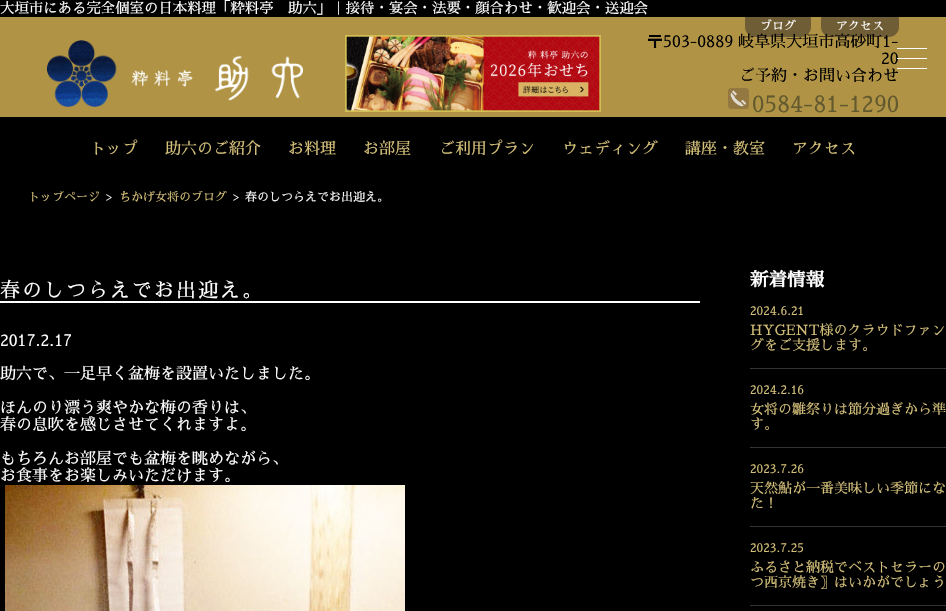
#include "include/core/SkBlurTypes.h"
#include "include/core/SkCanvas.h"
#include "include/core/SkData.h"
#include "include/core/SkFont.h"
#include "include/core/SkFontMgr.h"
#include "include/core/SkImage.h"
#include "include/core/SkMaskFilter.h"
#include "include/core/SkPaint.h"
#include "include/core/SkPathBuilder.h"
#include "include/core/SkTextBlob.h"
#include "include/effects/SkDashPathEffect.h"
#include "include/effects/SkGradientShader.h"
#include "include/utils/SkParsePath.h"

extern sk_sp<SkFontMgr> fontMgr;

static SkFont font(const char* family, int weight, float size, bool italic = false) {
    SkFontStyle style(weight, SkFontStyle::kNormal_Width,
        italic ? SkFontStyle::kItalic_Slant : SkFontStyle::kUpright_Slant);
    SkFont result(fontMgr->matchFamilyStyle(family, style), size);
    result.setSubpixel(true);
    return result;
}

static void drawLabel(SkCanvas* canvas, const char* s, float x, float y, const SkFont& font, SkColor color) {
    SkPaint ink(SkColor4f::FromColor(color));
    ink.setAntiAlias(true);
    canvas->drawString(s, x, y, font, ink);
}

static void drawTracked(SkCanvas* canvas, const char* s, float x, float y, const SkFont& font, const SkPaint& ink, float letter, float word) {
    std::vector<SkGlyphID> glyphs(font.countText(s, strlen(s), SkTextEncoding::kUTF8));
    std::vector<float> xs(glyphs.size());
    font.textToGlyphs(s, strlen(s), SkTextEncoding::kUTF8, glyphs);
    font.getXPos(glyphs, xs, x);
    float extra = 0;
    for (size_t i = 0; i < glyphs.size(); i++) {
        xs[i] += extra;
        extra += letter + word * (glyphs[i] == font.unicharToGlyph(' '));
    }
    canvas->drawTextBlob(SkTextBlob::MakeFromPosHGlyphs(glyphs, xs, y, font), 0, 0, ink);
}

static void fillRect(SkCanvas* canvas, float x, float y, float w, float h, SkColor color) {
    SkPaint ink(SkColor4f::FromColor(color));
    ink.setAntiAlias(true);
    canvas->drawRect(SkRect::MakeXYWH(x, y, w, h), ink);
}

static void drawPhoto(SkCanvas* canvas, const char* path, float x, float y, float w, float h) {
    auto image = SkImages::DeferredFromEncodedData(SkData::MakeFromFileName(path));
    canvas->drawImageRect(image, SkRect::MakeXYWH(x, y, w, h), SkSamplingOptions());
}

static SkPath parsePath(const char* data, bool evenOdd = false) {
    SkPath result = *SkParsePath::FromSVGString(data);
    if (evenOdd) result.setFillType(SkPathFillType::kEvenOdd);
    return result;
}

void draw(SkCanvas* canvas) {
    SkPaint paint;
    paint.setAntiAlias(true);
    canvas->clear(0xFF000000);
    SkFont font1 = font("Sawarabi Mincho", 400, 14.4f);
    drawLabel(canvas, "大垣市にある完全個室の日本料理「粋料亭　助六」｜接待・宴会・法要・顔合わせ・歓迎会・送迎会", 0, 13, font1, 0xFFFFFFFF);
    fillRect(canvas, 0, 17, 946, 100, 0xFFB09344);
    paint.setColor(0xFF6F5D35);
    canvas->drawPath(parsePath("M745 17H811V27C811 32.5 806.5 37 801 37H755C749.5 37 745 32.5 745 27Z"), paint);
    SkFont font2 = font("Sawarabi Mincho", 400, 12);
    drawLabel(canvas, "ブログ", 760, 30, font2, 0xFFFFFFFF);
    canvas->drawPath(parsePath("M821 17H899V27C899 32.5 894.5 37 889 37H831C825.5 37 821 32.5 821 27Z"), paint);
    drawLabel(canvas, "アクセス", 836, 30, font2, 0xFFFFFFFF);
    drawPhoto(canvas, "assets/img1.png", 47, 40, 256, 67);
    drawPhoto(canvas, "assets/img2.png", 345, 35, 256, 77);
    SkFont font3 = font("Sawarabi Mincho", 400, 16);
    drawLabel(canvas, "〒503-0889 岐阜県大垣市高砂町1-", 647, 47, font3, 0xFF000000);
    drawLabel(canvas, "20", 881, 64, font3, 0xFF000000);
    drawLabel(canvas, "ご予約・お問い合わせ", 739, 81, font3, 0xFF000000);
    drawPhoto(canvas, "assets/img3.png", 728, 88, 21, 21);
    SkFont font4 = font("Sawarabi Mincho", 400, 22.5f);
    drawLabel(canvas, "0584-81-1290", 752, 112, font4, 0xFF62592E);
    fillRect(canvas, 897, 48, 30, 1, 0xFFFFFFFF);
    fillRect(canvas, 897, 58, 30, 1, 0xFFFFFFFF);
    fillRect(canvas, 897, 68, 30, 1, 0xFFFFFFFF);
    drawLabel(canvas, "トップ", 90, 154, font3, 0xFFD4C079);
    drawLabel(canvas, "助六のご紹介", 165, 154, font3, 0xFFD4C079);
    drawLabel(canvas, "お料理", 288, 154, font3, 0xFFD4C079);
    drawLabel(canvas, "お部屋", 363, 154, font3, 0xFFD4C079);
    drawLabel(canvas, "ご利用プラン", 439, 154, font3, 0xFFD4C079);
    drawLabel(canvas, "ウェディング", 562, 154, font3, 0xFFD4C079);
    drawLabel(canvas, "講座・教室", 685, 154, font3, 0xFFD4C079);
    drawLabel(canvas, "アクセス", 792, 154, font3, 0xFFD4C079);
    canvas->save();
    canvas->clipRect(SkRect::MakeXYWH(28, 191, 890, 13));
    drawLabel(canvas, "トップページ", 28, 201, font2, 0xFFD4C079);
    canvas->restore();
    drawLabel(canvas, ">", 106, 201, font2, 0xFFFFFFFF);
    canvas->save();
    canvas->clipRect(SkRect::MakeXYWH(28, 191, 890, 13));
    drawLabel(canvas, "ちかげ女将のブログ", 119, 201, font2, 0xFFD4C079);
    canvas->restore();
    drawLabel(canvas, ">", 233, 201, font2, 0xFFFFFFFF);
    drawLabel(canvas, "春のしつらえでお出迎え。", 245, 201, font2, 0xFFFFFFFF);
    fillRect(canvas, 0, 301, 700, 2, 0xFFFFFFFF);
    SkFont font5 = font("Sawarabi Mincho", 400, 20);
    paint.setColor(0xFFFFFFFF);
    drawTracked(canvas, "春のしつらえでお出迎え。", 0, 297, font5, paint, 2, 0);
    drawLabel(canvas, "2017.2.17", 0, 346, font3, 0xFFFFFFFF);
    drawLabel(canvas, "助六で、一足早く盆梅を設置いたしました。", 0, 379, font3, 0xFFFFFFFF);
    drawLabel(canvas, "ほんのり漂う爽やかな梅の香りは、", 0, 413, font3, 0xFFFFFFFF);
    drawLabel(canvas, "春の息吹を感じさせてくれますよ。", 0, 430, font3, 0xFFFFFFFF);
    drawLabel(canvas, "もちろんお部屋でも盆梅を眺めながら、", 0, 464, font3, 0xFFFFFFFF);
    drawLabel(canvas, "お食事をお楽しみいただけます。", 0, 481, font3, 0xFFFFFFFF);
    drawPhoto(canvas, "assets/img4.png", 5, 485, 400, 126);
    SkFont font6 = font("Sawarabi Mincho", 700, 18.5f);
    drawLabel(canvas, "新着情報", 750, 286, font6, 0xFFFFFFFF);
    fillRect(canvas, 750, 368, 196, 1, 0xFF333333);
    drawLabel(canvas, "2024.6.21", 750, 315, font2, 0xFFD4C079);
    SkFont font7 = font("Sawarabi Mincho", 400, 14);
    drawLabel(canvas, "HYGENT様のクラウドファン", 750, 335, font7, 0xFFD4C079);
    drawLabel(canvas, "グをご支援します。", 750, 350, font7, 0xFFD4C079);
    fillRect(canvas, 750, 447, 196, 1, 0xFF333333);
    drawLabel(canvas, "2024.2.16", 750, 394, font2, 0xFFD4C079);
    drawLabel(canvas, "女将の雛祭りは節分過ぎから準", 750, 414, font7, 0xFFD4C079);
    drawLabel(canvas, "す。", 750, 429, font7, 0xFFD4C079);
    fillRect(canvas, 750, 526, 196, 1, 0xFF333333);
    drawLabel(canvas, "2023.7.26", 750, 473, font2, 0xFFD4C079);
    drawLabel(canvas, "天然鮎が一番美味しい季節にな", 750, 493, font7, 0xFFD4C079);
    drawLabel(canvas, "た！", 750, 508, font7, 0xFFD4C079);
    fillRect(canvas, 750, 605, 196, 1, 0xFF333333);
    drawLabel(canvas, "2023.7.25", 750, 552, font2, 0xFFD4C079);
    drawLabel(canvas, "ふるさと納税でベストセラーの", 750, 572, font7, 0xFFD4C079);
    drawLabel(canvas, "つ西京焼き〗はいかがでしょう", 750, 587, font7, 0xFFD4C079);
}
